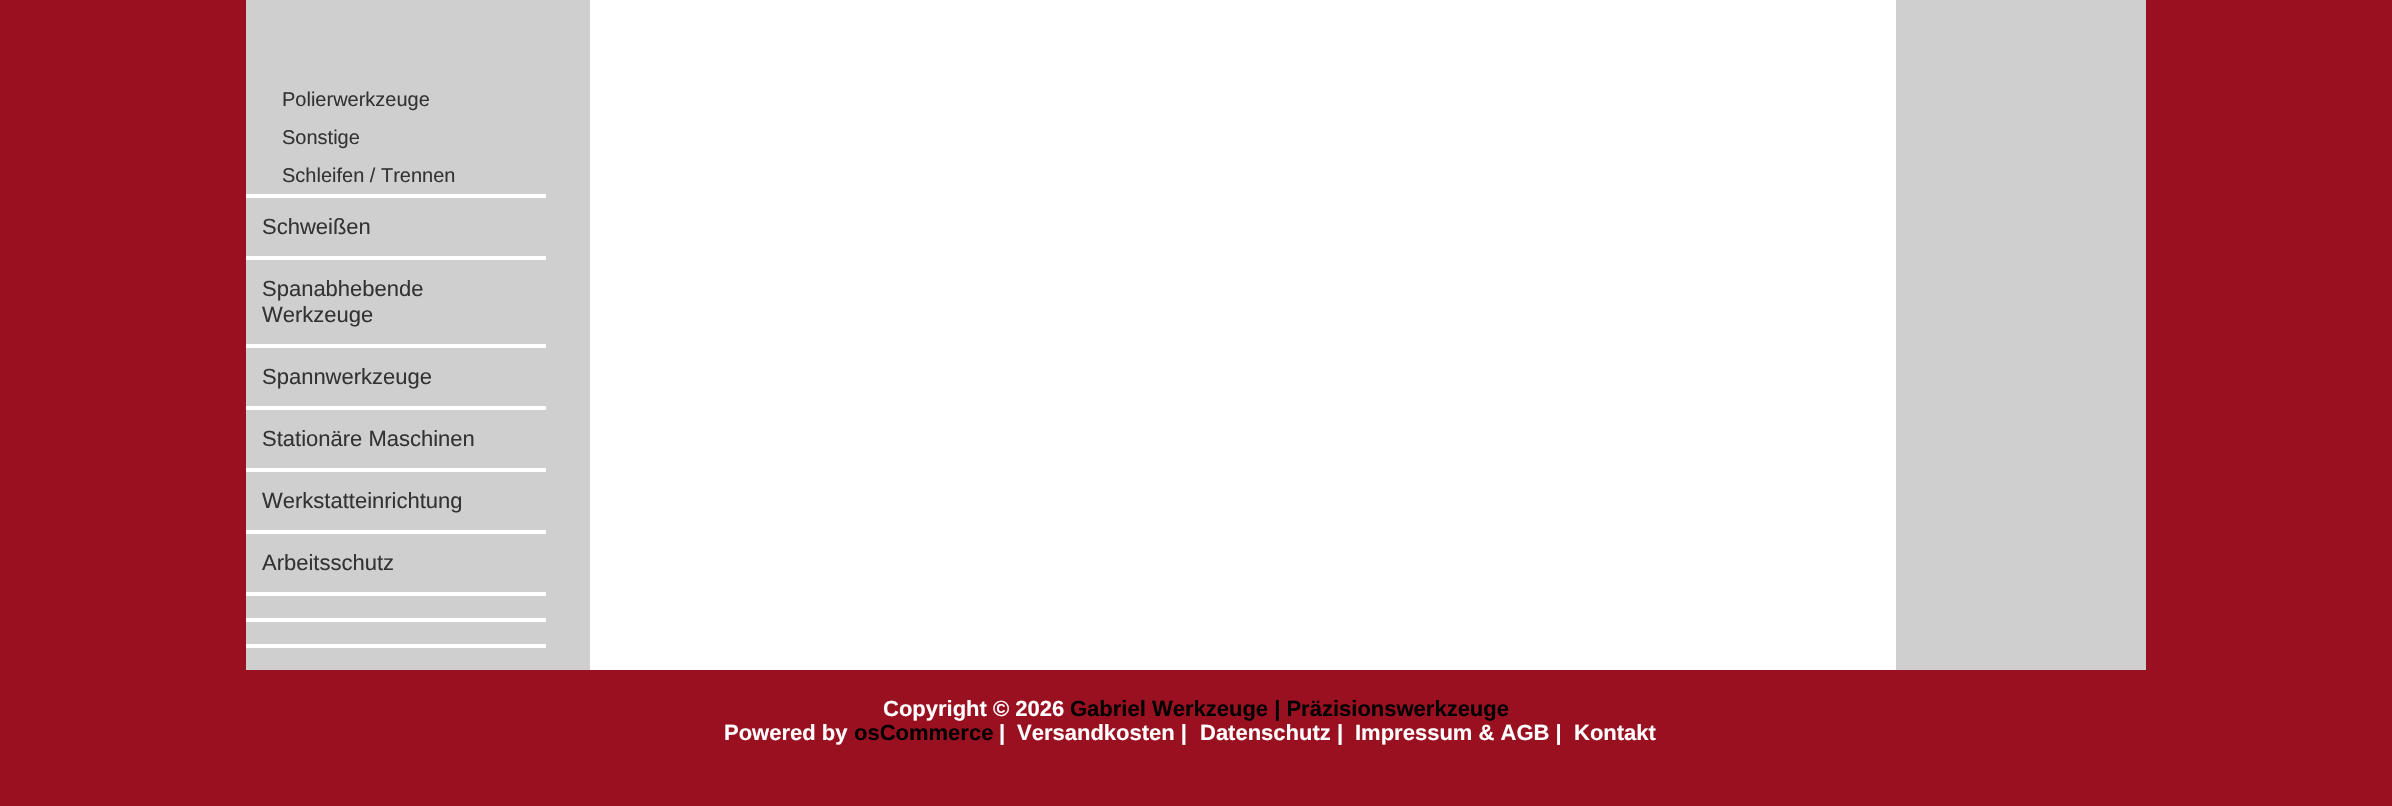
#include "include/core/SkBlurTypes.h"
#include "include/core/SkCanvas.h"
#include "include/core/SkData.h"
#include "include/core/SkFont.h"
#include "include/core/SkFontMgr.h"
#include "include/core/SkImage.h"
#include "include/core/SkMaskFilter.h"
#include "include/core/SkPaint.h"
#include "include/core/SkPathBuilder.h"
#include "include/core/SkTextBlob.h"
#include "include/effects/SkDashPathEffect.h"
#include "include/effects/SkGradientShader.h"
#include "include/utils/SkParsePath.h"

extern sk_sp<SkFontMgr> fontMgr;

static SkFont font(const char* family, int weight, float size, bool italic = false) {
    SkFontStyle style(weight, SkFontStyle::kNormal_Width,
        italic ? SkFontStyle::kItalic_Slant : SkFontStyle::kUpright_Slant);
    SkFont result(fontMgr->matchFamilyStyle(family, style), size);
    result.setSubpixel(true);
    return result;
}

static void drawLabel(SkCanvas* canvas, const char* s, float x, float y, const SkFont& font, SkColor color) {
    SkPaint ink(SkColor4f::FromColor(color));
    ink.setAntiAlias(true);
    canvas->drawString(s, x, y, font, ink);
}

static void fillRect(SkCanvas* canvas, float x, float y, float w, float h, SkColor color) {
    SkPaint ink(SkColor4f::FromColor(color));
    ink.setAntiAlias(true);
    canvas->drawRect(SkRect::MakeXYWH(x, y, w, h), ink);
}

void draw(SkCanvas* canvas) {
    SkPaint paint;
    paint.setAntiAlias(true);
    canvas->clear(0xFF991121);
    fillRect(canvas, 246, 0, 344, 670, 0xFFCFCFCF);
    SkFont font1 = font("Liberation Sans", 400, 20);
    drawLabel(canvas, "Polierwerkzeuge", 282, 106, font1, 0xFF333333);
    drawLabel(canvas, "Sonstige", 282, 144, font1, 0xFF333333);
    drawLabel(canvas, "Schleifen / Trennen", 282, 182, font1, 0xFF333333);
    fillRect(canvas, 246, 194, 300, 4, 0xFFFFFFFF);
    SkFont font2 = font("Liberation Sans", 400, 22);
    drawLabel(canvas, "Schweißen", 262, 234, font2, 0xFF333333);
    fillRect(canvas, 246, 256, 300, 4, 0xFFFFFFFF);
    drawLabel(canvas, "Spanabhebende", 262, 296, font2, 0xFF333333);
    drawLabel(canvas, "Werkzeuge", 262, 322, font2, 0xFF333333);
    fillRect(canvas, 246, 344, 300, 4, 0xFFFFFFFF);
    drawLabel(canvas, "Spannwerkzeuge", 262, 384, font2, 0xFF333333);
    fillRect(canvas, 246, 406, 300, 4, 0xFFFFFFFF);
    drawLabel(canvas, "Stationäre Maschinen", 262, 446, font2, 0xFF333333);
    fillRect(canvas, 246, 468, 300, 4, 0xFFFFFFFF);
    drawLabel(canvas, "Werkstatteinrichtung", 262, 508, font2, 0xFF333333);
    fillRect(canvas, 246, 530, 300, 4, 0xFFFFFFFF);
    drawLabel(canvas, "Arbeitsschutz", 262, 570, font2, 0xFF333333);
    fillRect(canvas, 246, 592, 300, 4, 0xFFFFFFFF);
    fillRect(canvas, 246, 618, 300, 4, 0xFFFFFFFF);
    fillRect(canvas, 246, 644, 300, 4, 0xFFFFFFFF);
    fillRect(canvas, 590, 0, 1306, 670, 0xFFFFFFFF);
    fillRect(canvas, 1896, 0, 250, 670, 0xFFCFCFCF);
    SkFont font3 = font("Liberation Sans", 700, 22);
    drawLabel(canvas, "Copyright © 2026", 883, 716, font3, 0xFFFFFFFF);
    drawLabel(canvas, "Gabriel Werkzeuge | Präzisionswerkzeuge", 1070, 716, font3, 0xFF000000);
    drawLabel(canvas, "Powered by", 724, 740, font3, 0xFFFFFFFF);
    drawLabel(canvas, "osCommerce", 854, 740, font3, 0xFF000000);
    drawLabel(canvas, "|", 999, 740, font3, 0xFFFFFFFF);
    drawLabel(canvas, "Versandkosten |", 1017, 740, font3, 0xFFFFFFFF);
    drawLabel(canvas, "Datenschutz |", 1200, 740, font3, 0xFFFFFFFF);
    drawLabel(canvas, "Impressum & AGB |", 1355, 740, font3, 0xFFFFFFFF);
    drawLabel(canvas, "Kontakt", 1574, 740, font3, 0xFFFFFFFF);
}
